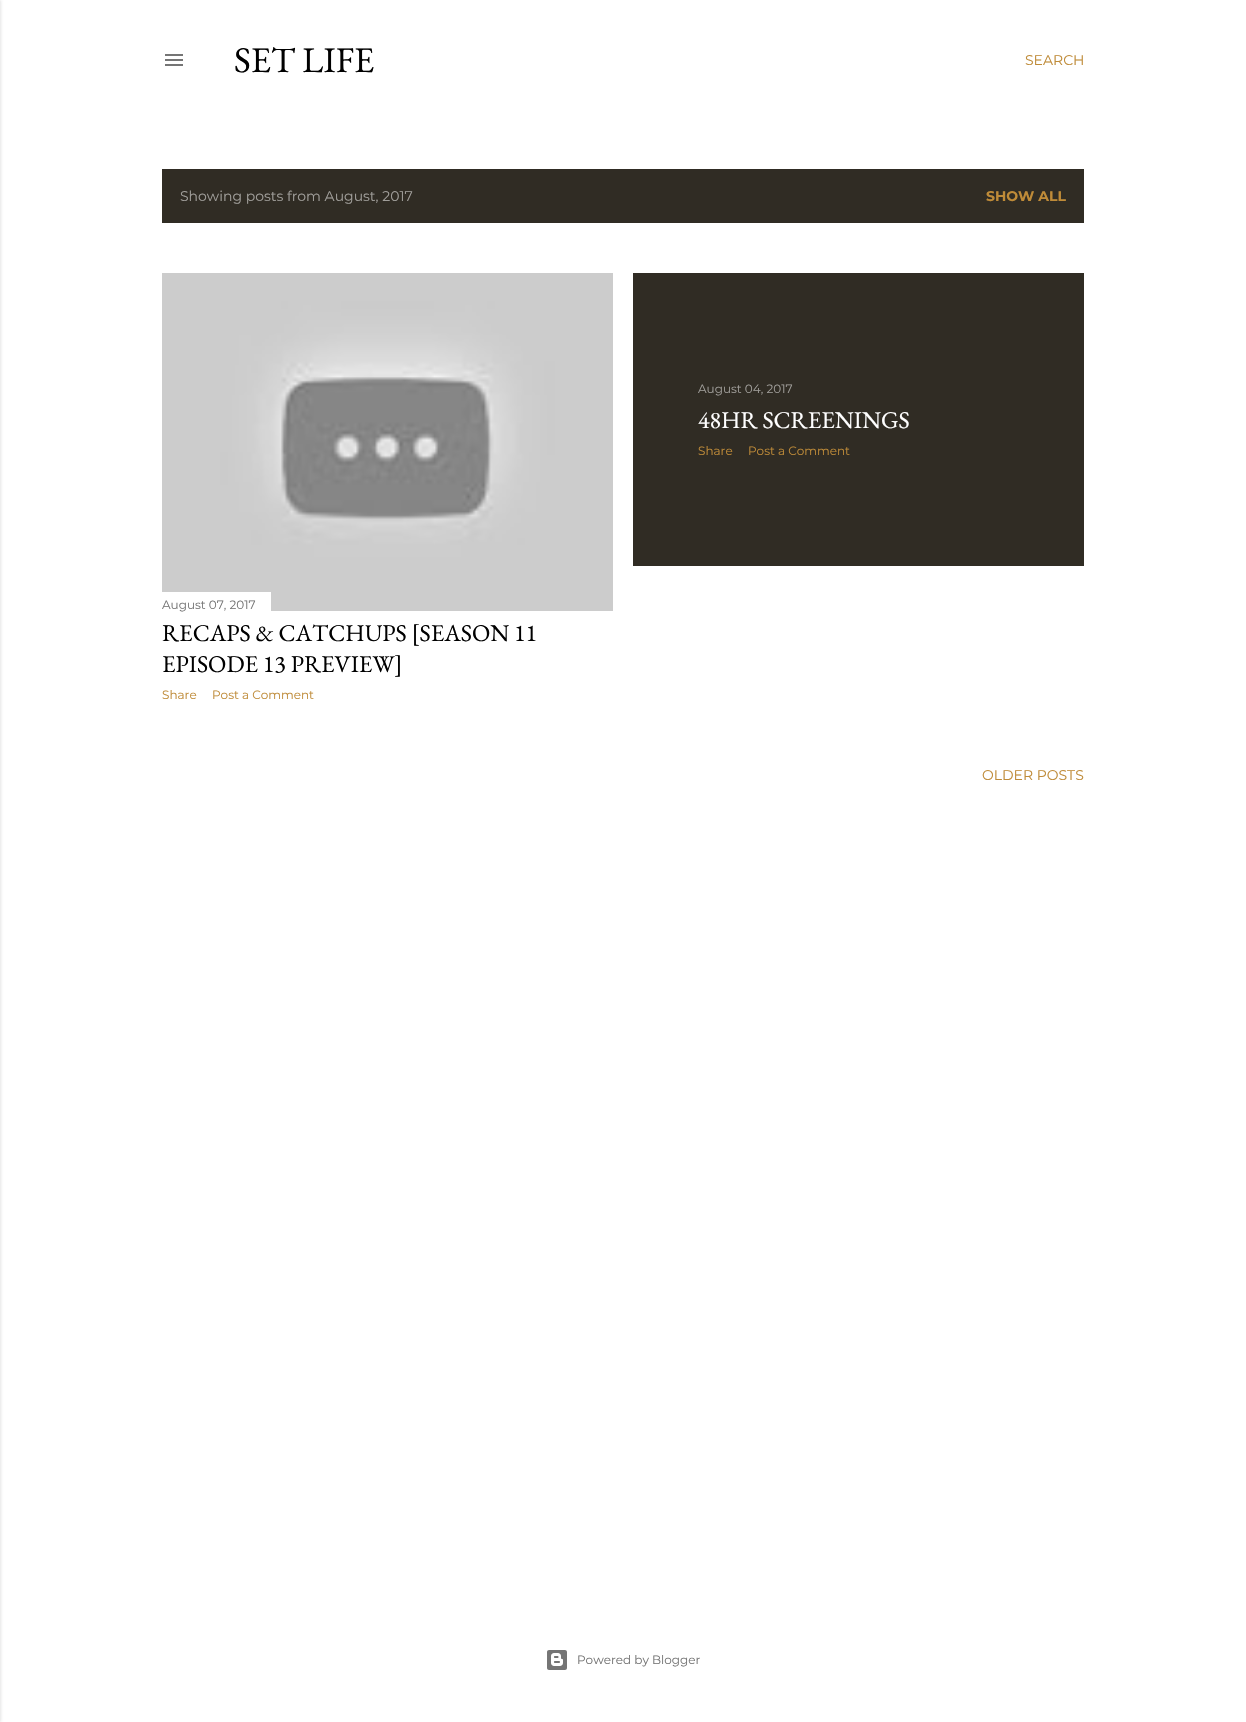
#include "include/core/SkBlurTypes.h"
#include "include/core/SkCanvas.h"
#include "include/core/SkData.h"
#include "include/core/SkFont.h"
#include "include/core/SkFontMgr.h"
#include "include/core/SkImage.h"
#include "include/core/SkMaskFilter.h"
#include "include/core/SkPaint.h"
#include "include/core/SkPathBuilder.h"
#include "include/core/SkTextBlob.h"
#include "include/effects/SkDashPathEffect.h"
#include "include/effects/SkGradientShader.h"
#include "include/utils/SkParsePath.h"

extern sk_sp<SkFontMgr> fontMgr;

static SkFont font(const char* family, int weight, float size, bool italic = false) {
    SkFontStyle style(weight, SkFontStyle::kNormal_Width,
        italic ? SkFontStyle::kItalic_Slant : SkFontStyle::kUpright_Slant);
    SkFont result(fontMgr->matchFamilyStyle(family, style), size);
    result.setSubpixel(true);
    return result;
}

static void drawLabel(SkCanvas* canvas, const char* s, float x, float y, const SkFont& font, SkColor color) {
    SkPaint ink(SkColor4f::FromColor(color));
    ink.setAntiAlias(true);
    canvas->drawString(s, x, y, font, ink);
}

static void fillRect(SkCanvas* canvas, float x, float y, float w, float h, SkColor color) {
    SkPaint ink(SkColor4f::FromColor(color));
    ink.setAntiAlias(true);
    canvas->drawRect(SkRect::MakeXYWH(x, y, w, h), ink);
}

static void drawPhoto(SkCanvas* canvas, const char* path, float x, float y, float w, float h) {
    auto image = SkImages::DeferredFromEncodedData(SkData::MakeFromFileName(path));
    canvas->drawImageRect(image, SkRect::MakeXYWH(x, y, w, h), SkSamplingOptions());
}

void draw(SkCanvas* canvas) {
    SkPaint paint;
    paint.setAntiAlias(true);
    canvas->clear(0xFFFFFFFF);
    paint.setColor(0x1A000000);
    paint.setMaskFilter(SkMaskFilter::MakeBlur(kNormal_SkBlurStyle, 1.5f));
    canvas->drawRect(SkRect::MakeXYWH(-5, 0, 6, 1722), paint);
    paint.setMaskFilter(nullptr);
    drawPhoto(canvas, "assets/img1.png", 165, 54, 18, 12);
    SkFont font1 = font("EB Garamond", 400, 36);
    drawLabel(canvas, "SET LIFE", 234, 72, font1, 0xFF000000);
    SkFont font2 = font("Montserrat", 400, 14);
    drawLabel(canvas, "SEARCH", 1025, 65, font2, 0xFFBF8B38);
    fillRect(canvas, 162, 169, 922, 54, 0xFF302C24);
    drawLabel(canvas, "Showing posts from August, 2017", 180, 201, font2, 0xFFA09E9A);
    SkFont font3 = font("Montserrat", 700, 14);
    drawLabel(canvas, "SHOW ALL", 986, 201, font3, 0xFFBF8B38);
    fillRect(canvas, 633, 273, 451, 293, 0xFF302C24);
    SkFont font4 = font("Montserrat", 400, 12);
    drawLabel(canvas, "August 04, 2017", 698, 393, font4, 0xFFA09E9A);
    SkFont font5 = font("EB Garamond", 400, 24);
    drawLabel(canvas, "48HR SCREENINGS", 698, 428, font5, 0xFFFFFFFF);
    drawLabel(canvas, "Share", 698, 455, font4, 0xFFBF8B38);
    drawLabel(canvas, "Post a Comment", 748, 455, font4, 0xFFBF8B38);
    drawPhoto(canvas, "assets/img2.png", 162, 273, 451, 338);
    fillRect(canvas, 162, 592, 109, 19, 0xFFFFFFFF);
    drawLabel(canvas, "August 07, 2017", 162, 609, font4, 0xFF757575);
    drawLabel(canvas, "RECAPS & CATCHUPS [SEASON 11", 162, 641, font5, 0xFF000000);
    drawLabel(canvas, "EPISODE 13 PREVIEW]", 162, 672, font5, 0xFF000000);
    drawLabel(canvas, "Share", 162, 699, font4, 0xFFBF8B38);
    drawLabel(canvas, "Post a Comment", 212, 699, font4, 0xFFBF8B38);
    drawLabel(canvas, "OLDER POSTS", 982, 780, font2, 0xFFBF8B38);
    drawPhoto(canvas, "assets/img3.png", 547, 1650, 20, 20);
    drawLabel(canvas, "Powered by Blogger", 577, 1664, font4, 0xFF757575);
}
